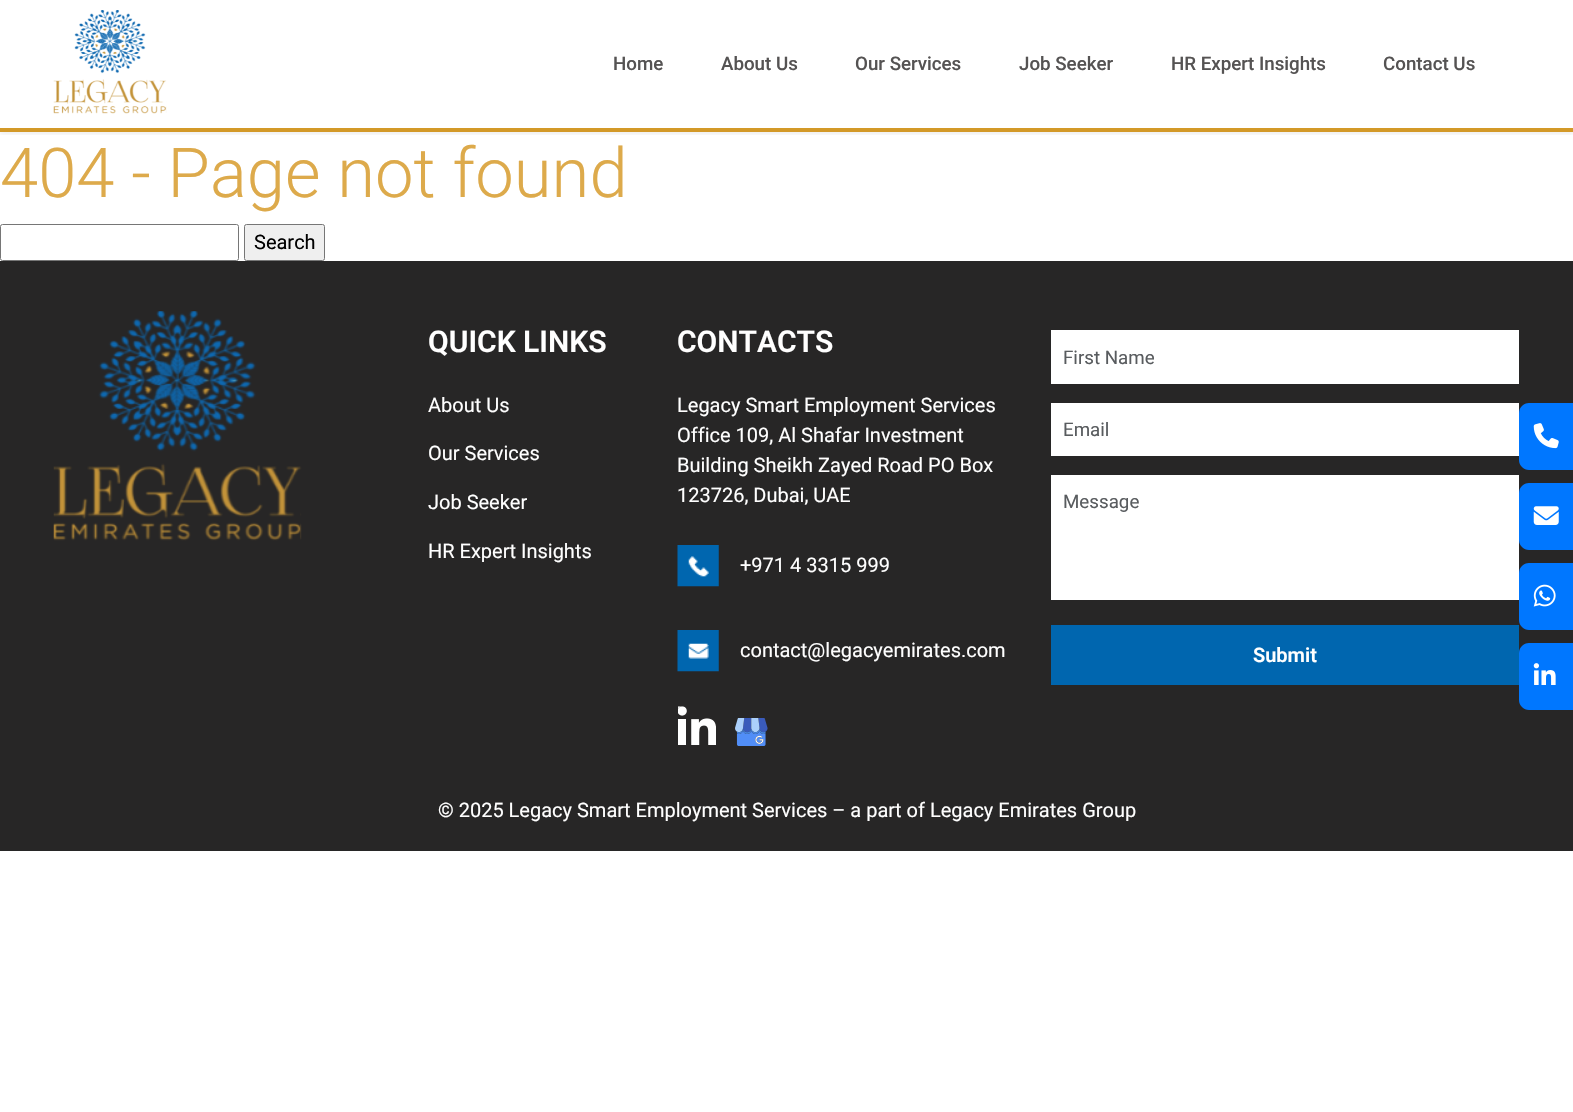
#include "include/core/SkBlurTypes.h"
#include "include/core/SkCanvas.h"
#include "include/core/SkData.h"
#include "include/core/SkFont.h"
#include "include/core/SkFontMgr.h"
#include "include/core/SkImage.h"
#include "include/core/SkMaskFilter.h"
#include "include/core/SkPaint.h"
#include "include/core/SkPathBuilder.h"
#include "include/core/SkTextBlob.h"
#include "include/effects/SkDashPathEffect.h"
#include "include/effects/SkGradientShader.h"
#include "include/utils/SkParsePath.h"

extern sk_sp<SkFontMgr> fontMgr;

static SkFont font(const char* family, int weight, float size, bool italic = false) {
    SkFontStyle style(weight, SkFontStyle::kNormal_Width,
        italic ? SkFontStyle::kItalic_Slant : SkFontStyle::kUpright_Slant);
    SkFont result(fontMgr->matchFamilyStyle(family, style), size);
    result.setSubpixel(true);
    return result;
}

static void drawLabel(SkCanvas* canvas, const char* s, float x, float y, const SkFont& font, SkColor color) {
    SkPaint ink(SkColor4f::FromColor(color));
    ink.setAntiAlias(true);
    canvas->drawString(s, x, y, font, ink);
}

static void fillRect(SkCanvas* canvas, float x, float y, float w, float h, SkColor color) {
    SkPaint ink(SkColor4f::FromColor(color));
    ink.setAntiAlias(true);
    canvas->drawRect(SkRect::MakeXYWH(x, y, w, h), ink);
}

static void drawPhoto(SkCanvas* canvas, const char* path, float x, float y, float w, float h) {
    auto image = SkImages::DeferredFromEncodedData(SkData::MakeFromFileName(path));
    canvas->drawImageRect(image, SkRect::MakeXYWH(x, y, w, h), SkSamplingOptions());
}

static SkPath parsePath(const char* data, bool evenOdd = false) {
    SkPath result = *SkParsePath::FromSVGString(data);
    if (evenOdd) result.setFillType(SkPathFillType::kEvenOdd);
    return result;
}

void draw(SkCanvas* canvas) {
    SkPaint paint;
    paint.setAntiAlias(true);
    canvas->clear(0xFFFFFFFF);
    canvas->save();
    canvas->clipRect(SkRect::MakeXYWH(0, 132, 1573, 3));
    paint.setColor(0x12000000);
    paint.setMaskFilter(SkMaskFilter::MakeBlur(kNormal_SkBlurStyle, 2.5f));
    canvas->drawRect(SkRect::MakeXYWH(0, 3, 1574, 131), paint);
    paint.setMaskFilter(nullptr);
    canvas->restore();
    fillRect(canvas, 0, 128, 1573, 4, 0xFFD39928);
    drawPhoto(canvas, "assets/img1.png", 53, 10, 114, 104);
    SkFont font1 = font("Roboto", 500, 18.75f);
    drawLabel(canvas, "Home", 613, 70, font1, 0xFF555353);
    drawLabel(canvas, "About Us", 721, 70, font1, 0xFF555353);
    drawLabel(canvas, "Our Services", 855, 70, font1, 0xFF555353);
    drawLabel(canvas, "Job Seeker", 1019, 70, font1, 0xFF555353);
    drawLabel(canvas, "HR Expert Insights", 1171, 70, font1, 0xFF555353);
    drawLabel(canvas, "Contact Us", 1383, 70, font1, 0xFF555353);
    SkFont font2 = font("Roboto", 300, 68.75f);
    drawLabel(canvas, "404 - Page not found", 0, 197, font2, 0xFFDDAA4B);
    paint.setStroke(true);
    paint.setStrokeWidth(1);
    paint.setColor(0xFF767676);
    canvas->drawRoundRect(SkRect::MakeXYWH(0.5f, 224.5f, 238, 36), 2, 2, paint);
    paint.setStroke(false);
    paint.setColor(0xFFEFEFEF);
    canvas->drawRoundRect(SkRect::MakeXYWH(244.5f, 224.5f, 80, 36), 2, 2, paint);
    paint.setStroke(true);
    paint.setColor(0xFF767676);
    canvas->drawRoundRect(SkRect::MakeXYWH(244.5f, 224.5f, 80, 36), 2, 2, paint);
    SkFont font3 = font("Roboto", 400, 20);
    drawLabel(canvas, "Search", 254, 249, font3, 0xFF000000);
    fillRect(canvas, 0, 261, 1573, 590, 0xFF272626);
    drawPhoto(canvas, "assets/img2.png", 53, 311, 249, 230);
    SkFont font4 = font("Roboto", 600, 30);
    drawLabel(canvas, "QUICK LINKS", 428, 352, font4, 0xFFFFFFFF);
    drawLabel(canvas, "About Us", 428, 412, font3, 0xFFFFFFFF);
    drawLabel(canvas, "Our Services", 428, 460, font3, 0xFFFFFFFF);
    drawLabel(canvas, "Job Seeker", 428, 509, font3, 0xFFFFFFFF);
    drawLabel(canvas, "HR Expert Insights", 428, 558, font3, 0xFFFFFFFF);
    drawLabel(canvas, "CONTACTS", 677, 352, font4, 0xFFFFFFFF);
    drawLabel(canvas, "Legacy Smart Employment Services", 677, 412, font3, 0xFFFFFFFF);
    drawLabel(canvas, "Office 109, Al Shafar Investment", 677, 442, font3, 0xFFFFFFFF);
    drawLabel(canvas, "Building Sheikh Zayed Road PO Box", 677, 472, font3, 0xFFFFFFFF);
    drawLabel(canvas, "123726, Dubai, UAE", 677, 502, font3, 0xFFFFFFFF);
    drawPhoto(canvas, "assets/img3.png", 677, 545, 42, 42);
    drawLabel(canvas, "+971 4 3315 999", 740, 572, font3, 0xFFFFFFFF);
    drawPhoto(canvas, "assets/img4.png", 677, 630, 42, 42);
    drawLabel(canvas, "contact@legacyemirates.com", 740, 657, font3, 0xFFFFFFFF);
    drawPhoto(canvas, "assets/img5.png", 678, 706, 38, 39);
    drawPhoto(canvas, "assets/img6.png", 735, 718, 33, 28);
    fillRect(canvas, 1051, 330, 468, 54, 0xFFFFFFFF);
    SkFont font5 = font("Roboto", 400, 18.75f);
    drawLabel(canvas, "First Name", 1063, 364, font5, 0xFF595C5F);
    fillRect(canvas, 1051, 403, 468, 53, 0xFFFFFFFF);
    drawLabel(canvas, "Email", 1063, 436, font5, 0xFF595C5F);
    fillRect(canvas, 1051, 475, 468, 125, 0xFFFFFFFF);
    drawLabel(canvas, "Message", 1063, 508, font5, 0xFF595C5F);
    fillRect(canvas, 1051, 625, 468, 60, 0xFF0066AF);
    SkFont font6 = font("Roboto", 600, 20);
    drawLabel(canvas, "Submit", 1253, 662, font6, 0xFFFFFFFF);
    drawLabel(canvas, "© 2025 Legacy Smart Employment Services – a part of Legacy Emirates Group", 438, 817, font3, 0xFFFFFFFF);
    paint.setStroke(false);
    paint.setColor(0xFF0077FF);
    canvas->drawPath(parsePath("M1529 403H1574V470H1529C1523.5 470 1519 465.5 1519 460V413C1519 407.5 1523.5 403 1529 403Z"), paint);
    drawPhoto(canvas, "assets/img7.png", 1533, 423, 26, 26);
    canvas->drawPath(parsePath("M1529 483H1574V550H1529C1523.5 550 1519 545.5 1519 540V493C1519 487.5 1523.5 483 1529 483Z"), paint);
    drawPhoto(canvas, "assets/img8.png", 1533, 506, 26, 19);
    canvas->drawPath(parsePath("M1529 563H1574V630H1529C1523.5 630 1519 625.5 1519 620V573C1519 567.5 1523.5 563 1529 563Z"), paint);
    drawPhoto(canvas, "assets/img9.png", 1533, 584, 23, 23);
    canvas->drawPath(parsePath("M1529 643H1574V710H1529C1523.5 710 1519 705.5 1519 700V653C1519 647.5 1523.5 643 1529 643Z"), paint);
    drawPhoto(canvas, "assets/img10.png", 1533, 663, 23, 22);
}
